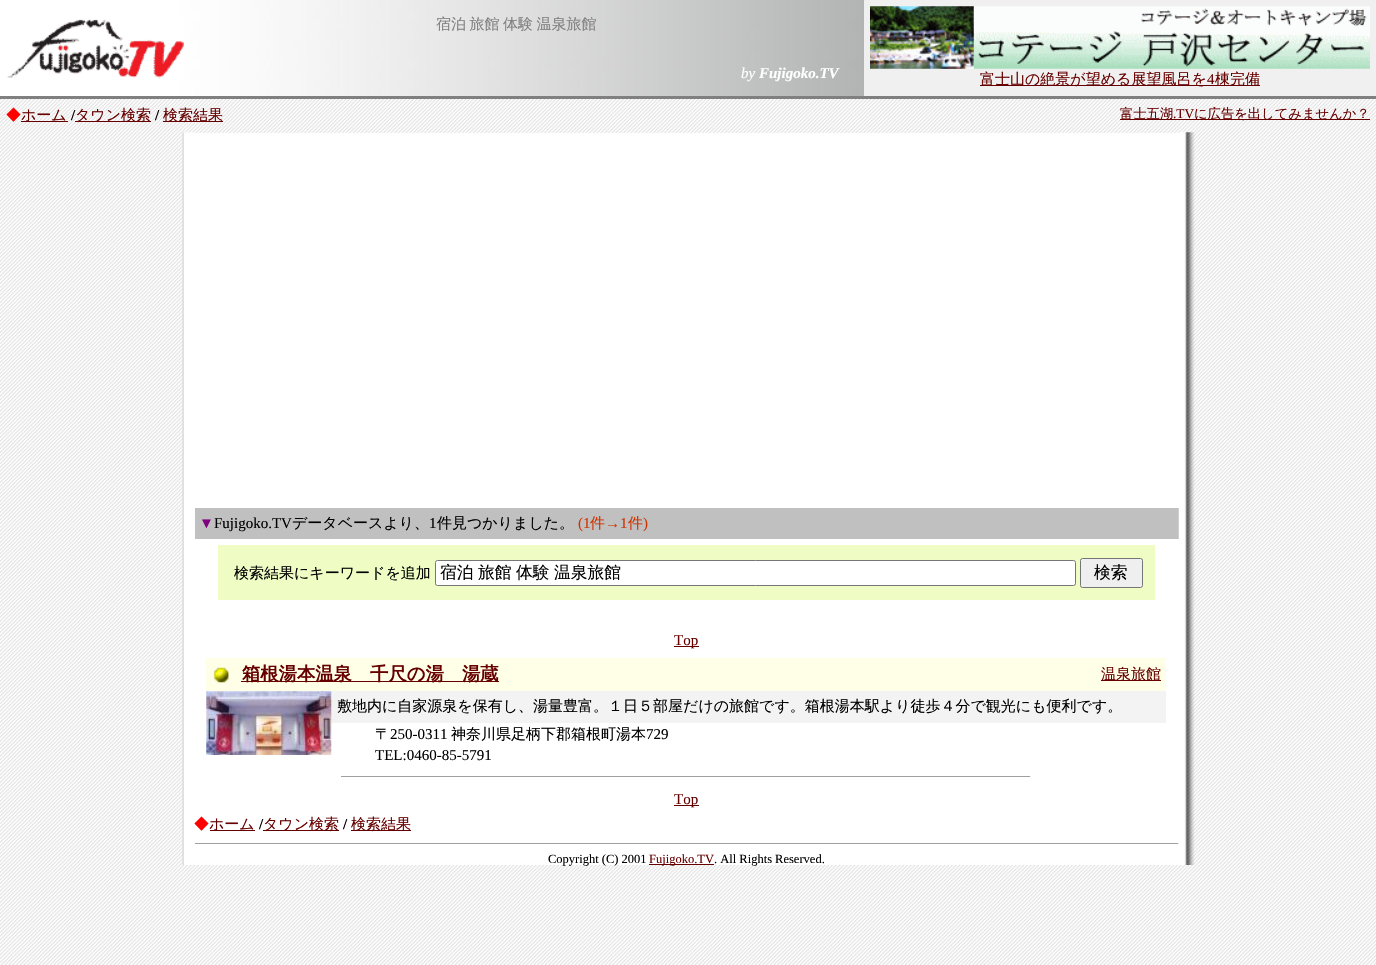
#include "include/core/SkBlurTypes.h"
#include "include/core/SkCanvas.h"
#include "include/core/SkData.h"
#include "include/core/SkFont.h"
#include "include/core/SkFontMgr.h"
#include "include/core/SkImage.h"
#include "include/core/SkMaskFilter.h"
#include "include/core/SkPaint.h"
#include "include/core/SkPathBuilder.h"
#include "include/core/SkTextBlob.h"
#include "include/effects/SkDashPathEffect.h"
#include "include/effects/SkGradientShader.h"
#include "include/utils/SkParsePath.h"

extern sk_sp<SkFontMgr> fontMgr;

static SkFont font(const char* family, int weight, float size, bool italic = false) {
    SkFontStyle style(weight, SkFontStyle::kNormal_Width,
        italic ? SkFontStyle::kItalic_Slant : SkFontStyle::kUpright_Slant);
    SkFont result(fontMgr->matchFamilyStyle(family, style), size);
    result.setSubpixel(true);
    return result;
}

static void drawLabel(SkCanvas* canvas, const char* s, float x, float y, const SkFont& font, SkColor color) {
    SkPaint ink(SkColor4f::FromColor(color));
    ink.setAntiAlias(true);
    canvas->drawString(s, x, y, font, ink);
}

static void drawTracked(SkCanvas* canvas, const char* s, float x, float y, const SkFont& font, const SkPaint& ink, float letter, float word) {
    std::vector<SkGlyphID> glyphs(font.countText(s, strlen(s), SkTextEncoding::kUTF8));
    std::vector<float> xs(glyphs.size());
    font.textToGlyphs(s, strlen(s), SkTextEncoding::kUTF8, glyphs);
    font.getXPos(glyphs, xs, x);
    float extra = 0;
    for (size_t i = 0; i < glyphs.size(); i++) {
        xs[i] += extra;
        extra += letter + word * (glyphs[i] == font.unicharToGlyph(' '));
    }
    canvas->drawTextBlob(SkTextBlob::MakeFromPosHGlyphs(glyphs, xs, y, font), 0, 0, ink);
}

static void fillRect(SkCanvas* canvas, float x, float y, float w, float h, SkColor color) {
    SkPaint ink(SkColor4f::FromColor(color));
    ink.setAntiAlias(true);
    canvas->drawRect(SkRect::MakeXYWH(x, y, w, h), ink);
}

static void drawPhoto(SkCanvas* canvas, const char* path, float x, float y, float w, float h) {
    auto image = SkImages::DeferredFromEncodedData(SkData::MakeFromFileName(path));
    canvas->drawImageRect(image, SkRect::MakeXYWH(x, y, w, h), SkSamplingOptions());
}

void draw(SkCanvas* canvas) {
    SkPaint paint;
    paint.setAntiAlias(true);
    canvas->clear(0xFFFFFFFF);
    drawPhoto(canvas, "assets/img1.png", 0, 99, 1376, 866);
    drawPhoto(canvas, "assets/img2.png", 0, 0, 864, 96);
    drawPhoto(canvas, "assets/img3.png", 7, 19, 177, 60);
    SkFont font1 = font("WenQuanYi Zen Hei", 500, 15);
    paint.setColor(0xFF808080);
    drawTracked(canvas, "宿泊 旅館 体験 温泉旅館", 436, 29, font1, paint, 0, -1);
    fillRect(canvas, 864, 0, 512, 96, 0xFFF0F0F0);
    drawPhoto(canvas, "assets/img4.png", 870, 6, 500, 63);
    fillRect(canvas, 980, 85, 280, 1, 0xFF660000);
    drawLabel(canvas, "富士山の絶景が望める展望風呂を", 980, 84, font1, 0xFF660000);
    SkFont font2 = font("Liberation Serif", 400, 15);
    drawLabel(canvas, "4", 1207, 84, font2, 0xFF660000);
    drawLabel(canvas, "棟完備", 1215, 84, font1, 0xFF660000);
    SkFont font3 = font("Liberation Serif", 400, 15, true);
    drawLabel(canvas, "by", 741, 78, font3, 0xFFFFFFFF);
    SkFont font4 = font("Liberation Serif", 700, 15, true);
    drawLabel(canvas, "Fujigoko.TV", 759, 78, font4, 0xFFFFFFFF);
    fillRect(canvas, 0, 96, 1376, 3, 0xFF808080);
    drawLabel(canvas, "◆", 6, 120, font1, 0xFFFF0000);
    fillRect(canvas, 21, 121, 47, 1, 0xFF660000);
    drawLabel(canvas, "ホーム", 21, 120, font1, 0xFF660000);
    SkFont font5 = font("Liberation Serif", 700, 15);
    drawLabel(canvas, "/", 71, 120, font5, 0xFF000000);
    fillRect(canvas, 75, 121, 76, 1, 0xFF660000);
    drawLabel(canvas, "タウン検索", 75, 120, font1, 0xFF660000);
    drawLabel(canvas, "/", 155, 120, font5, 0xFF000000);
    fillRect(canvas, 163, 121, 60, 1, 0xFF660000);
    drawLabel(canvas, "検索結果", 163, 120, font1, 0xFF660000);
    fillRect(canvas, 1120, 119, 250, 1, 0xFF660000);
    SkFont font6 = font("WenQuanYi Zen Hei", 500, 13.3f);
    drawLabel(canvas, "富士五湖", 1120, 118, font6, 0xFF660000);
    SkFont font7 = font("Liberation Serif", 400, 13.3f);
    drawLabel(canvas, ".TV", 1173, 118, font7, 0xFF660000);
    drawLabel(canvas, "に広告を出してみませんか？", 1194, 118, font6, 0xFF660000);
    drawPhoto(canvas, "assets/img5.png", 182, 132, 13, 733);
    fillRect(canvas, 195, 133, 984, 732, 0xFFFFFFFF);
    fillRect(canvas, 195, 508, 984, 31, 0xFFC0C0C0);
    drawLabel(canvas, "▼", 199, 528, font2, 0xFF800080);
    drawLabel(canvas, "Fujigoko.TV", 214, 528, font2, 0xFF000000);
    drawLabel(canvas, "データベースより、", 292, 528, font1, 0xFF000000);
    drawLabel(canvas, "1", 429, 528, font2, 0xFF000000);
    drawLabel(canvas, "件見つかりました。", 437, 528, font1, 0xFF000000);
    drawLabel(canvas, "(1", 578, 528, font2, 0xFFCC3300);
    drawLabel(canvas, "件", 590, 528, font1, 0xFFCC3300);
    drawLabel(canvas, "→1", 605, 528, font2, 0xFFCC3300);
    drawLabel(canvas, "件", 628, 528, font1, 0xFFCC3300);
    drawLabel(canvas, ")", 643, 528, font2, 0xFFCC3300);
    fillRect(canvas, 218, 545, 937, 55, 0xFFEFFDC4);
    drawLabel(canvas, "検索結果にキーワードを追加", 234, 578, font1, 0xFF000000);
    paint.setColor(0xFFFFFFFF);
    canvas->drawRoundRect(SkRect::MakeXYWH(435.5f, 560.5f, 640, 25), 2, 2, paint);
    paint.setStroke(true);
    paint.setStrokeWidth(1);
    paint.setColor(0xFF767676);
    canvas->drawRoundRect(SkRect::MakeXYWH(435.5f, 560.5f, 640, 25), 2, 2, paint);
    SkFont font8 = font("WenQuanYi Zen Hei", 500, 16.75f);
    paint.setStroke(false);
    paint.setColor(0xFF000000);
    drawTracked(canvas, "宿泊 旅館 体験 温泉旅館", 440, 578, font8, paint, 0, -0.5f);
    paint.setColor(0xFFEFEFEF);
    canvas->drawRoundRect(SkRect::MakeXYWH(1080.5f, 558.5f, 62, 29), 2, 2, paint);
    paint.setStroke(true);
    paint.setColor(0xFF767676);
    canvas->drawRoundRect(SkRect::MakeXYWH(1080.5f, 558.5f, 62, 29), 2, 2, paint);
    drawLabel(canvas, "検索", 1094, 578, font8, 0xFF000000);
    fillRect(canvas, 674, 646, 25, 1, 0xFF660000);
    drawLabel(canvas, "Top", 674, 645, font2, 0xFF660000);
    fillRect(canvas, 206, 658, 960, 33, 0xFFFFFFE8);
    drawPhoto(canvas, "assets/img6.png", 213, 667, 16, 16);
    fillRect(canvas, 241, 681, 258, 1, 0xFF660000);
    SkFont font9 = font("WenQuanYi Zen Hei", 700, 18.3f);
    drawLabel(canvas, "箱根湯本温泉　千尺の湯　湯蔵", 242, 680, font9, 0xFF660000);
    fillRect(canvas, 1101, 680, 60, 1, 0xFF660000);
    drawLabel(canvas, "温泉旅館", 1101, 679, font1, 0xFF660000);
    fillRect(canvas, 331, 691, 835, 32, 0xFFF3F3F3);
    drawPhoto(canvas, "assets/img7.png", 206, 691, 126, 64);
    drawLabel(canvas, "敷地内に自家源泉を保有し、湯量豊富。１日５部屋だけの旅館です。箱根湯本駅より徒歩４分で観光にも便利です。", 337, 711, font1, 0xFF000000);
    drawLabel(canvas, "〒", 375, 739, font1, 0xFF000000);
    drawLabel(canvas, "250-0311", 390, 739, font2, 0xFF000000);
    drawLabel(canvas, "神奈川県足柄下郡箱根町湯本", 451, 739, font1, 0xFF000000);
    drawLabel(canvas, "729", 646, 739, font2, 0xFF000000);
    drawLabel(canvas, "TEL:0460-85-5791", 375, 760, font2, 0xFF000000);
    fillRect(canvas, 341, 776, 690, 1, 0xFF9F9F9F);
    fillRect(canvas, 1030, 776, 1, 1, 0xFFEEEEEE);
    fillRect(canvas, 674, 805, 25, 1, 0xFF660000);
    drawLabel(canvas, "Top", 674, 804, font2, 0xFF660000);
    drawLabel(canvas, "◆", 194, 829, font1, 0xFFFF0000);
    fillRect(canvas, 210, 830, 45, 1, 0xFF660000);
    drawLabel(canvas, "ホーム", 209, 829, font1, 0xFF660000);
    drawLabel(canvas, "/", 259, 829, font5, 0xFF000000);
    fillRect(canvas, 263, 830, 76, 1, 0xFF660000);
    drawLabel(canvas, "タウン検索", 263, 829, font1, 0xFF660000);
    drawLabel(canvas, "/", 343, 829, font5, 0xFF000000);
    fillRect(canvas, 351, 830, 60, 1, 0xFF660000);
    drawLabel(canvas, "検索結果", 351, 829, font1, 0xFF660000);
    drawPhoto(canvas, "assets/img8.png", 1178, 132, 17, 733);
    fillRect(canvas, 195, 843, 984, 1, 0xFF9F9F9F);
    fillRect(canvas, 1178, 843, 1, 1, 0xFFEEEEEE);
    SkFont font10 = font("Liberation Serif", 400, 12.5f);
    drawLabel(canvas, "Copyright (C) 2001", 548, 863, font10, 0xFF000000);
    fillRect(canvas, 649, 864, 65, 1, 0xFF660000);
    drawLabel(canvas, "Fujigoko.TV", 649, 863, font10, 0xFF660000);
    drawLabel(canvas, ". All Rights Reserved.", 714, 863, font10, 0xFF000000);
    drawPhoto(canvas, "assets/img9.png", 1179, 132, 16, 20);
}
